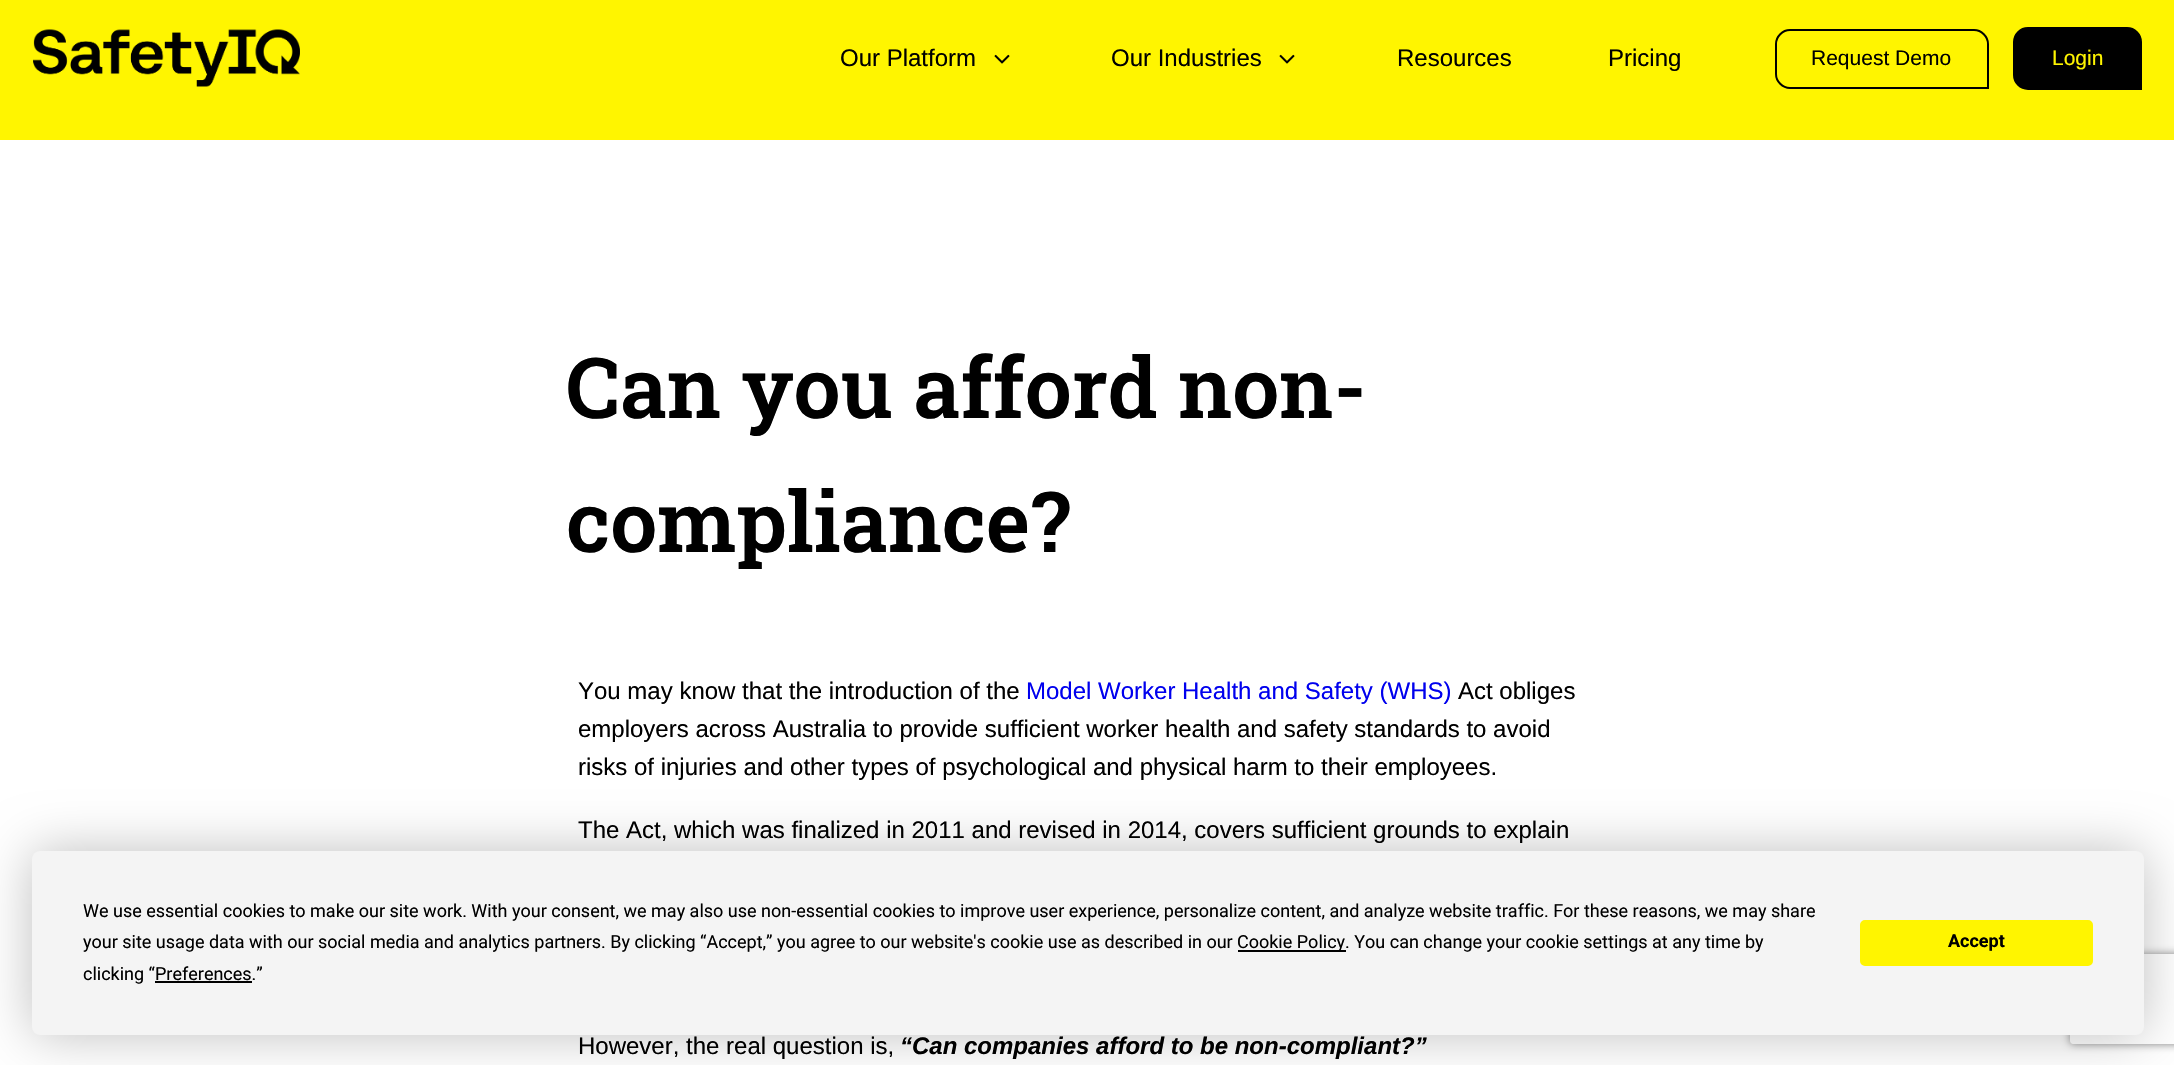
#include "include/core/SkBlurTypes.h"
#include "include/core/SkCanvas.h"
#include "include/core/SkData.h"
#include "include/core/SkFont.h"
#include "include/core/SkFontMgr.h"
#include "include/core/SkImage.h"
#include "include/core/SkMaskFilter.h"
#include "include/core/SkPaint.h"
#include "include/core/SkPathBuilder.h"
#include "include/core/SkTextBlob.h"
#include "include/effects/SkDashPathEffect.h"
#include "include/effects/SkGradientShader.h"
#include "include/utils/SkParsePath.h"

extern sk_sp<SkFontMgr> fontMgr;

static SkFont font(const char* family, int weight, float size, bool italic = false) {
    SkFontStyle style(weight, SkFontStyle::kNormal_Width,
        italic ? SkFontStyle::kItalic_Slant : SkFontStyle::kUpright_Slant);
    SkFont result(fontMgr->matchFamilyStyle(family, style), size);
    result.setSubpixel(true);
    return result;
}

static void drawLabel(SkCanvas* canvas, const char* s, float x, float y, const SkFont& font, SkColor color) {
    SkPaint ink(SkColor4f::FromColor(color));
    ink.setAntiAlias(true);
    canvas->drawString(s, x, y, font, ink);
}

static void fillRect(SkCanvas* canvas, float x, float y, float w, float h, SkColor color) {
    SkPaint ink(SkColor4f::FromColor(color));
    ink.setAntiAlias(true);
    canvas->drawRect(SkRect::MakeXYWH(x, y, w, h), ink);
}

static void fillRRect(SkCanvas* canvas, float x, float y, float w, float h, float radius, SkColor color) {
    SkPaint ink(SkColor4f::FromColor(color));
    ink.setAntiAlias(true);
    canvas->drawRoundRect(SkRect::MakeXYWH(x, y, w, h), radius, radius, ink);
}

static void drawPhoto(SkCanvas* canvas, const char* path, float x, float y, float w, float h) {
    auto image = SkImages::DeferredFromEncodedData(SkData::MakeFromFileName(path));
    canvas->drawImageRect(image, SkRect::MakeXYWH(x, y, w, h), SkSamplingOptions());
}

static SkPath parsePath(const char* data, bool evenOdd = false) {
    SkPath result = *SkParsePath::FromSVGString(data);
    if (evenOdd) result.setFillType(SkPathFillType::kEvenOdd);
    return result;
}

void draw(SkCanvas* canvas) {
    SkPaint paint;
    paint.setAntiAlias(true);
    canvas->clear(0xFFFFFFFF);
    fillRect(canvas, 0, 0, 2174, 140, 0xFFFFF500);
    drawPhoto(canvas, "assets/img1.png", 33, 29, 267, 58);
    SkFont font1 = font("Liberation Sans", 400, 24);
    drawLabel(canvas, "Our Platform", 840, 66, font1, 0xFF000000);
    drawPhoto(canvas, "assets/img2.png", 994, 54, 16, 10);
    drawLabel(canvas, "Our Industries", 1111, 66, font1, 0xFF000000);
    drawPhoto(canvas, "assets/img2.png", 1279, 54, 16, 10);
    drawLabel(canvas, "Resources", 1397, 66, font1, 0xFF000000);
    drawLabel(canvas, "Pricing", 1608, 66, font1, 0xFF000000);
    paint.setStroke(true);
    paint.setStrokeWidth(2);
    paint.setColor(0xFF000000);
    canvas->drawPath(parsePath("M1790 30H1974C1981.5 30 1988 36.5 1988 44V88H1790C1782.5 88 1776 81.5 1776 74V44C1776 36.5 1782.5 30 1790 30Z"), paint);
    SkFont font2 = font("Liberation Sans", 400, 21);
    drawLabel(canvas, "Request Demo", 1811, 65, font2, 0xFF000000);
    paint.setStroke(false);
    canvas->drawPath(parsePath("M2028 28.5H2127C2134.5 28.5 2140.5 34.5 2140.5 42V88.5H2028C2020.5 88.5 2014.5 82.5 2014.5 75V42C2014.5 34.5 2020.5 28.5 2028 28.5Z"), paint);
    paint.setStroke(true);
    paint.setStrokeWidth(3);
    canvas->drawPath(parsePath("M2028 28.5H2127C2134.5 28.5 2140.5 34.5 2140.5 42V88.5H2028C2020.5 88.5 2014.5 82.5 2014.5 75V42C2014.5 34.5 2020.5 28.5 2028 28.5Z"), paint);
    drawLabel(canvas, "Login", 2052, 65, font2, 0xFFFFF500);
    SkFont font3 = font("Roboto Slab", 600, 84);
    drawLabel(canvas, "Can you afford non-", 566, 418, font3, 0xFF000000);
    drawLabel(canvas, "compliance?", 566, 552, font3, 0xFF000000);
    drawLabel(canvas, "You may know that the introduction of the", 578, 699, font1, 0xFF000000);
    drawLabel(canvas, "Model Worker Health and Safety (WHS)", 1026, 699, font1, 0xFF0000EE);
    drawLabel(canvas, "Act obliges", 1458, 699, font1, 0xFF000000);
    drawLabel(canvas, "employers across Australia to provide sufficient worker health and safety standards to avoid", 578, 737, font1, 0xFF000000);
    drawLabel(canvas, "risks of injuries and other types of psychological and physical harm to their employees.", 578, 775, font1, 0xFF000000);
    drawLabel(canvas, "The Act, which was finalized in 2011 and revised in 2014, covers sufficient grounds to explain", 578, 838, font1, 0xFF000000);
    drawLabel(canvas, "However, the real question is,", 578, 1054, font1, 0xFF000000);
    SkFont font4 = font("Liberation Sans", 700, 24, true);
    drawLabel(canvas, "“Can companies afford to be non-compliant?”", 900, 1054, font4, 0xFF000000);
    paint.setStroke(false);
    paint.setColor(0x40000000);
    paint.setMaskFilter(SkMaskFilter::MakeBlur(kNormal_SkBlurStyle, 26));
    canvas->drawRoundRect(SkRect::MakeXYWH(32, 851, 2112, 184), 8, 8, paint);
    paint.setMaskFilter(nullptr);
    canvas->save();
    canvas->clipPath(parsePath("M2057 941H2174V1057H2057ZM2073 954H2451C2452.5 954 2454 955.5 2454 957V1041C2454 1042.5 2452.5 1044 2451 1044H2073C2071.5 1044 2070 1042.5 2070 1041V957C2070 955.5 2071.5 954 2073 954Z", true), true);
    paint.setColor(0xFF808080);
    paint.setMaskFilter(SkMaskFilter::MakeBlur(kNormal_SkBlurStyle, 4));
    canvas->drawRoundRect(SkRect::MakeXYWH(2070, 954, 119, 90), 3, 3, paint);
    paint.setMaskFilter(nullptr);
    canvas->restore();
    fillRRect(canvas, 32, 851, 2112, 184, 8, 0xFFF4F4F4);
    SkFont font5 = font("Roboto", 400, 18);
    drawLabel(canvas, "We use essential cookies to make our site work. With your consent, we may also use non-essential cookies to improve user experience, personalize content, and analyze website traffic. For these reasons, we may share", 83, 917, font5, 0xFF000000);
    drawLabel(canvas, "your site usage data with our social media and analytics partners. By clicking “Accept,” you agree to our website's cookie use as described in our", 83, 948, font5, 0xFF000000);
    fillRect(canvas, 1238, 950, 108, 2, 0xFF000000);
    drawLabel(canvas, "Cookie Policy. You can change your cookie settings at any time by", 1237, 948, font5, 0xFF000000);
    drawLabel(canvas, "clicking “Preferences.”", 83, 980, font5, 0xFF000000);
    fillRect(canvas, 155, 981, 97, 2, 0xFF000000);
    paint.setColor(0xFFFFF500);
    canvas->drawRoundRect(SkRect::MakeXYWH(1861, 921, 231, 44), 4, 4, paint);
    paint.setStroke(true);
    paint.setStrokeWidth(2);
    canvas->drawRoundRect(SkRect::MakeXYWH(1861, 921, 231, 44), 4, 4, paint);
    SkFont font6 = font("Roboto", 700, 18);
    drawLabel(canvas, "Accept", 1948, 947, font6, 0xFF000000);
}
